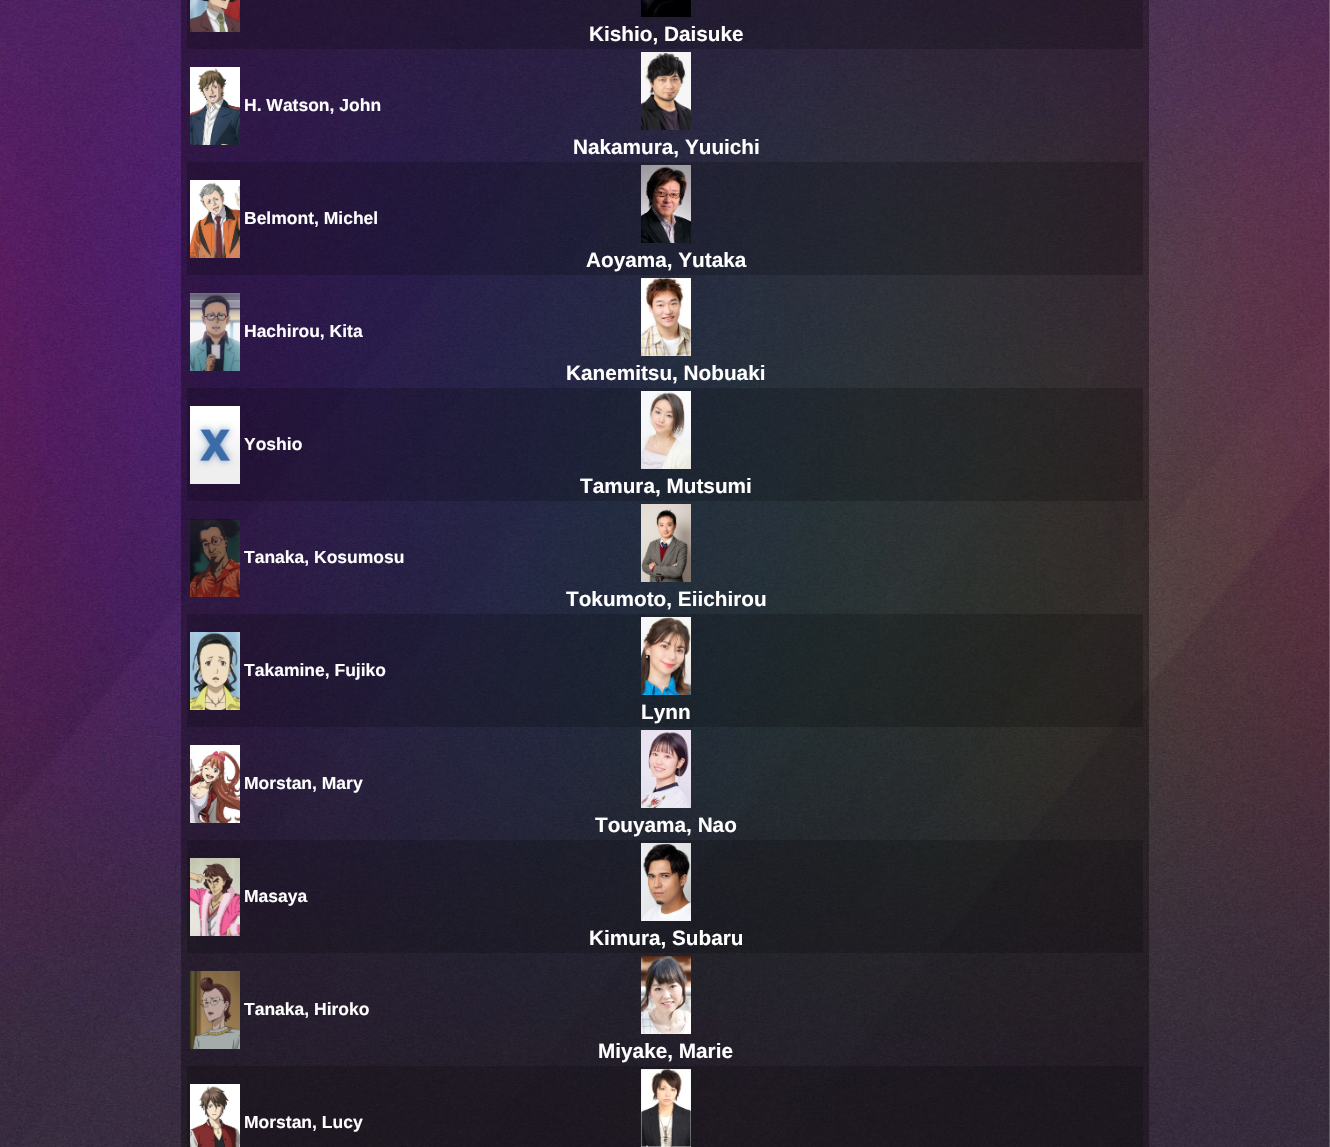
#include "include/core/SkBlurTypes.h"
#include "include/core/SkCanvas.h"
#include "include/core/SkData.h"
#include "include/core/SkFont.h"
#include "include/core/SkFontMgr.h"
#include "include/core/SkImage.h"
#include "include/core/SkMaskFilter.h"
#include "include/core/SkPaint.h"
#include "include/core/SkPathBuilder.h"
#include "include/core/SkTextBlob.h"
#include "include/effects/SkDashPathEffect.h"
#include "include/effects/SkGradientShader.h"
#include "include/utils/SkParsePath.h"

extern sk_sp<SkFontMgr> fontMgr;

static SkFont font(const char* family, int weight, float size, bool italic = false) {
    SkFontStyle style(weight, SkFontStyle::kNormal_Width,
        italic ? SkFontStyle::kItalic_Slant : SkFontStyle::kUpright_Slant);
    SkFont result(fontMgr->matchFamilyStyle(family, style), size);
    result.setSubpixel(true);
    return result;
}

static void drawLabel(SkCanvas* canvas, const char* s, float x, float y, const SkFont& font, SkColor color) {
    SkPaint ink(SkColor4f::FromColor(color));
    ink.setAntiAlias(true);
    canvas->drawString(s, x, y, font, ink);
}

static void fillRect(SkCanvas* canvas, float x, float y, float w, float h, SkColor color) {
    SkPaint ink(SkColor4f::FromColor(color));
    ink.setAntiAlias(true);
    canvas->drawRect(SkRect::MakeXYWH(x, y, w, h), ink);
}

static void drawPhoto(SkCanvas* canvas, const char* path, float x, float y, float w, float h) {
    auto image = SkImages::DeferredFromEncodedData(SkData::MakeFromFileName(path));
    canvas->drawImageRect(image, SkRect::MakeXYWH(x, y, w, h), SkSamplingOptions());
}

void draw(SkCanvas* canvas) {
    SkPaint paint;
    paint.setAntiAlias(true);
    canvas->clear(0xFFFFFFFF);
    drawPhoto(canvas, "assets/img1.png", 0, 0, 1330, 1147);
    fillRect(canvas, 181, 0, 968, 1147, 0x59000000);
    fillRect(canvas, 187, 0, 956, 49, 0x33000000);
    drawPhoto(canvas, "assets/img2.png", 190, 0, 50, 32);
    drawPhoto(canvas, "assets/img3.png", 641, 0, 50, 17);
    SkFont font1 = font("Liberation Sans", 700, 20.75f);
    drawLabel(canvas, "Kishio, Daisuke", 589, 41, font1, 0xFFFFFFFF);
    drawPhoto(canvas, "assets/img4.png", 190, 67, 50, 78);
    SkFont font2 = font("Liberation Sans", 700, 17.5f);
    drawLabel(canvas, "H. Watson, John", 244, 111, font2, 0xFFFFFFFF);
    drawPhoto(canvas, "assets/img5.png", 641, 52, 50, 78);
    drawLabel(canvas, "Nakamura, Yuuichi", 573, 154, font1, 0xFFFFFFFF);
    fillRect(canvas, 187, 162, 956, 113, 0x33000000);
    drawPhoto(canvas, "assets/img6.png", 190, 180, 50, 78);
    drawLabel(canvas, "Belmont, Michel", 244, 224, font2, 0xFFFFFFFF);
    drawPhoto(canvas, "assets/img7.png", 641, 165, 50, 78);
    drawLabel(canvas, "Aoyama, Yutaka", 586, 267, font1, 0xFFFFFFFF);
    drawPhoto(canvas, "assets/img8.png", 190, 293, 50, 78);
    drawLabel(canvas, "Hachirou, Kita", 244, 337, font2, 0xFFFFFFFF);
    drawPhoto(canvas, "assets/img9.png", 641, 278, 50, 78);
    drawLabel(canvas, "Kanemitsu, Nobuaki", 566, 380, font1, 0xFFFFFFFF);
    fillRect(canvas, 187, 388, 956, 113, 0x33000000);
    drawPhoto(canvas, "assets/img10.png", 190, 406, 50, 78);
    drawLabel(canvas, "Yoshio", 244, 450, font2, 0xFFFFFFFF);
    drawPhoto(canvas, "assets/img11.png", 641, 391, 50, 78);
    drawLabel(canvas, "Tamura, Mutsumi", 580, 493, font1, 0xFFFFFFFF);
    drawPhoto(canvas, "assets/img12.png", 190, 519, 50, 78);
    drawLabel(canvas, "Tanaka, Kosumosu", 244, 563, font2, 0xFFFFFFFF);
    drawPhoto(canvas, "assets/img13.png", 641, 504, 50, 78);
    drawLabel(canvas, "Tokumoto, Eiichirou", 566, 606, font1, 0xFFFFFFFF);
    fillRect(canvas, 187, 614, 956, 113, 0x33000000);
    drawPhoto(canvas, "assets/img14.png", 190, 632, 50, 78);
    drawLabel(canvas, "Takamine, Fujiko", 244, 676, font2, 0xFFFFFFFF);
    drawPhoto(canvas, "assets/img15.png", 641, 617, 50, 78);
    drawLabel(canvas, "Lynn", 641, 719, font1, 0xFFFFFFFF);
    drawPhoto(canvas, "assets/img16.png", 190, 745, 50, 78);
    drawLabel(canvas, "Morstan, Mary", 244, 789, font2, 0xFFFFFFFF);
    drawPhoto(canvas, "assets/img17.png", 641, 730, 50, 78);
    drawLabel(canvas, "Touyama, Nao", 595, 832, font1, 0xFFFFFFFF);
    fillRect(canvas, 187, 840, 956, 113, 0x33000000);
    drawPhoto(canvas, "assets/img18.png", 190, 858, 50, 78);
    drawLabel(canvas, "Masaya", 244, 902, font2, 0xFFFFFFFF);
    drawPhoto(canvas, "assets/img19.png", 641, 843, 50, 78);
    drawLabel(canvas, "Kimura, Subaru", 589, 945, font1, 0xFFFFFFFF);
    drawPhoto(canvas, "assets/img20.png", 190, 971, 50, 78);
    drawLabel(canvas, "Tanaka, Hiroko", 244, 1015, font2, 0xFFFFFFFF);
    drawPhoto(canvas, "assets/img21.png", 641, 956, 50, 78);
    drawLabel(canvas, "Miyake, Marie", 598, 1058, font1, 0xFFFFFFFF);
    fillRect(canvas, 187, 1066, 956, 81, 0x33000000);
    drawPhoto(canvas, "assets/img22.png", 190, 1084, 50, 63);
    drawLabel(canvas, "Morstan, Lucy", 244, 1128, font2, 0xFFFFFFFF);
    drawPhoto(canvas, "assets/img23.png", 641, 1069, 50, 78);
}
